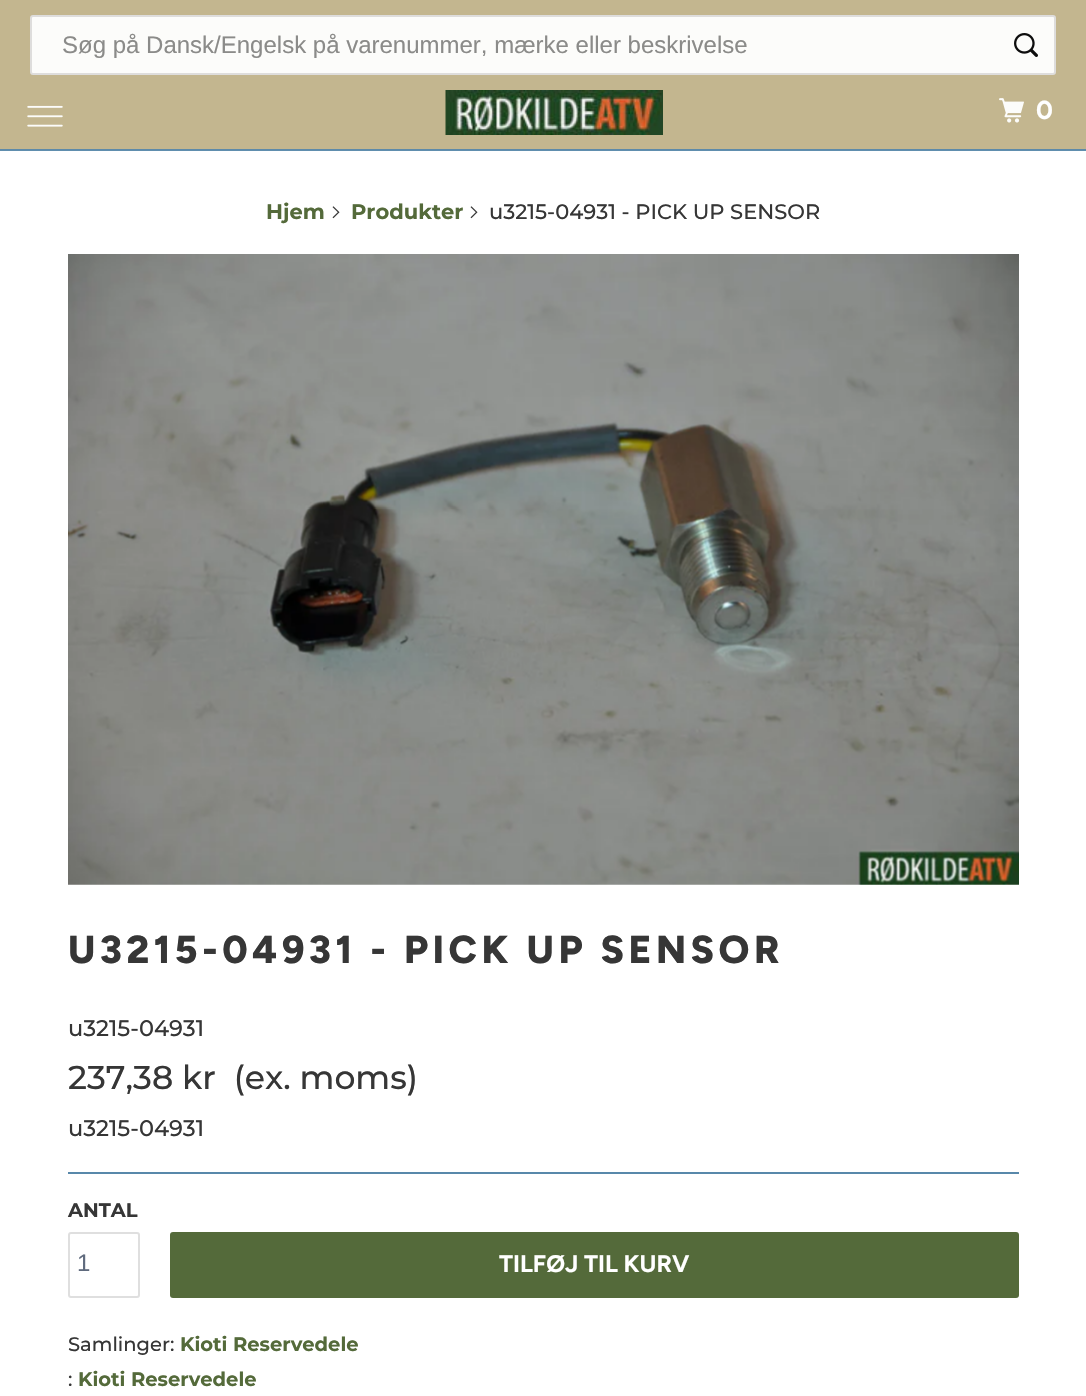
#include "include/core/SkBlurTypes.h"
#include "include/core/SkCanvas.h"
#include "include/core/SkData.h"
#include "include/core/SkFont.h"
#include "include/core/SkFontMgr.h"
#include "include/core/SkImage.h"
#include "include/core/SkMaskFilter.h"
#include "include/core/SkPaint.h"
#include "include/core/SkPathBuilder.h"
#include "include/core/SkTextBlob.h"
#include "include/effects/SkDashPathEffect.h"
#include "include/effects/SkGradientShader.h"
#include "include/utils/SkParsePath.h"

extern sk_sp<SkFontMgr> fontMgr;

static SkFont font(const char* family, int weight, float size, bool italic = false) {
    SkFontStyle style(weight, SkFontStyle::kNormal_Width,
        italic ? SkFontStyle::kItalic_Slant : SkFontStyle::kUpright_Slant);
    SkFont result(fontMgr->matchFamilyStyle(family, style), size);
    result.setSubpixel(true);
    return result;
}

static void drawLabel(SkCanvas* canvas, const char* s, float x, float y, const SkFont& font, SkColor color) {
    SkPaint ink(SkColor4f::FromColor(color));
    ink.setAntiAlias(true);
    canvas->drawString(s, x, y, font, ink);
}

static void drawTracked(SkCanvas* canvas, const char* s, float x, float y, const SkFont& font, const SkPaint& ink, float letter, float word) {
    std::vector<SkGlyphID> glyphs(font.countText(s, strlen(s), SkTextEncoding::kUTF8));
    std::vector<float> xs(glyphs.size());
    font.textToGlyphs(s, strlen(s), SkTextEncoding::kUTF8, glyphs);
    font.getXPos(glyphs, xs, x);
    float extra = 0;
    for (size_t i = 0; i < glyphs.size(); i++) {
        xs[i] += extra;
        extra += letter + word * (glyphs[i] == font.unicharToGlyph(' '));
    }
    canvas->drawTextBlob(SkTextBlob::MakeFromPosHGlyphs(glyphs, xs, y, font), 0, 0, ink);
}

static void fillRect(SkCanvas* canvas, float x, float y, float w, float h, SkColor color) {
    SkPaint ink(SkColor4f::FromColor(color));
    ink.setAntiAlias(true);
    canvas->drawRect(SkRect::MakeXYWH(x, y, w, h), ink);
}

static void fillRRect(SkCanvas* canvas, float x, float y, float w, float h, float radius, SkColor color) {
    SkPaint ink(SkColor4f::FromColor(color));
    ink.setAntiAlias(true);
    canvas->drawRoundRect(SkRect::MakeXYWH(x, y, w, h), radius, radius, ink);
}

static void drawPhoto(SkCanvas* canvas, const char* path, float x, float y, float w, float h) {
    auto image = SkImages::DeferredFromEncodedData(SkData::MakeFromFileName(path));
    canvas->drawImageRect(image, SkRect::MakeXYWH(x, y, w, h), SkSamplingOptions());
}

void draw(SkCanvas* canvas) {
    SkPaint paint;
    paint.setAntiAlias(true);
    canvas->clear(0xFFFFFFFF);
    fillRect(canvas, 0, 0, 1086, 149, 0xFFC3B68F);
    fillRect(canvas, 0, 149, 1086, 1, 0xFF5D8AA9);
    paint.setColor(0xFFFCFCFA);
    canvas->drawRoundRect(SkRect::MakeXYWH(31, 16, 1024, 58), 2, 2, paint);
    paint.setStroke(true);
    paint.setStrokeWidth(2);
    paint.setColor(0xFFDEDDDC);
    canvas->drawRoundRect(SkRect::MakeXYWH(31, 16, 1024, 58), 2, 2, paint);
    SkFont font1 = font("Liberation Sans", 400, 24);
    drawLabel(canvas, "Søg på Dansk/Engelsk på varenummer, mærke eller beskrivelse", 62, 53, font1, 0xFF8B8B89);
    drawPhoto(canvas, "assets/img1.png", 1014, 33, 24, 24);
    drawPhoto(canvas, "assets/img2.png", 27, 105, 36, 22);
    drawPhoto(canvas, "assets/img3.png", 445, 90, 218, 45);
    drawPhoto(canvas, "assets/img4.png", 999, 98, 25, 25);
    SkFont font2 = font("Figtree", 700, 26);
    drawLabel(canvas, "0", 1036, 119, font2, 0xFFFFFFFF);
    fillRect(canvas, 0, 150, 1086, 1, 0xFF608EAE);
    SkFont font3 = font("Montserrat", 700, 21);
    drawLabel(canvas, "Hjem", 266, 219, font3, 0xFF546A3A);
    drawPhoto(canvas, "assets/img5.png", 332, 206, 8, 13);
    drawLabel(canvas, "Produkter", 351, 219, font3, 0xFF546A3A);
    drawPhoto(canvas, "assets/img5.png", 470, 206, 8, 13);
    SkFont font4 = font("Montserrat", 500, 21);
    drawLabel(canvas, "u3215-04931 - PICK UP SENSOR", 489, 219, font4, 0xFF363636);
    drawPhoto(canvas, "assets/img6.png", 68, 254, 951, 631);
    SkFont font5 = font("Figtree", 800, 39);
    paint.setStroke(false);
    paint.setColor(0xFF363636);
    drawTracked(canvas, "U3215-04931 - PICK UP SENSOR", 68, 963, font5, paint, 4.5f, 0);
    SkFont font6 = font("Montserrat", 500, 22.5f);
    drawLabel(canvas, "u3215-04931", 68, 1036, font6, 0xFF363636);
    SkFont font7 = font("Montserrat", 500, 33);
    drawLabel(canvas, "237,38 kr  (ex. moms)", 68, 1089, font7, 0xFF363636);
    drawLabel(canvas, "u3215-04931", 68, 1136, font6, 0xFF363636);
    fillRect(canvas, 68, 1172, 951, 2, 0xFF5888AA);
    SkFont font8 = font("Montserrat", 700, 19.5f);
    drawLabel(canvas, "ANTAL", 68, 1217, font8, 0xFF363636);
    paint.setStroke(true);
    paint.setColor(0xFFDFDFDF);
    canvas->drawRoundRect(SkRect::MakeXYWH(69, 1233, 70, 64), 2, 2, paint);
    drawLabel(canvas, "1", 77, 1271, font1, 0xFF5F6A7D);
    fillRRect(canvas, 170, 1232, 849, 66, 3, 0xFF546A3A);
    SkFont font9 = font("Figtree", 700, 24);
    drawLabel(canvas, "TILFØJ TIL KURV", 499, 1272, font9, 0xFFFFFFFF);
    SkFont font10 = font("Montserrat", 500, 19.5f);
    drawLabel(canvas, "Samlinger:", 68, 1351, font10, 0xFF363636);
    drawLabel(canvas, "Kioti Reservedele", 180, 1351, font8, 0xFF546A3A);
    drawLabel(canvas, ":", 68, 1386, font10, 0xFF363636);
    drawLabel(canvas, "Kioti Reservedele", 78, 1386, font8, 0xFF546A3A);
}
